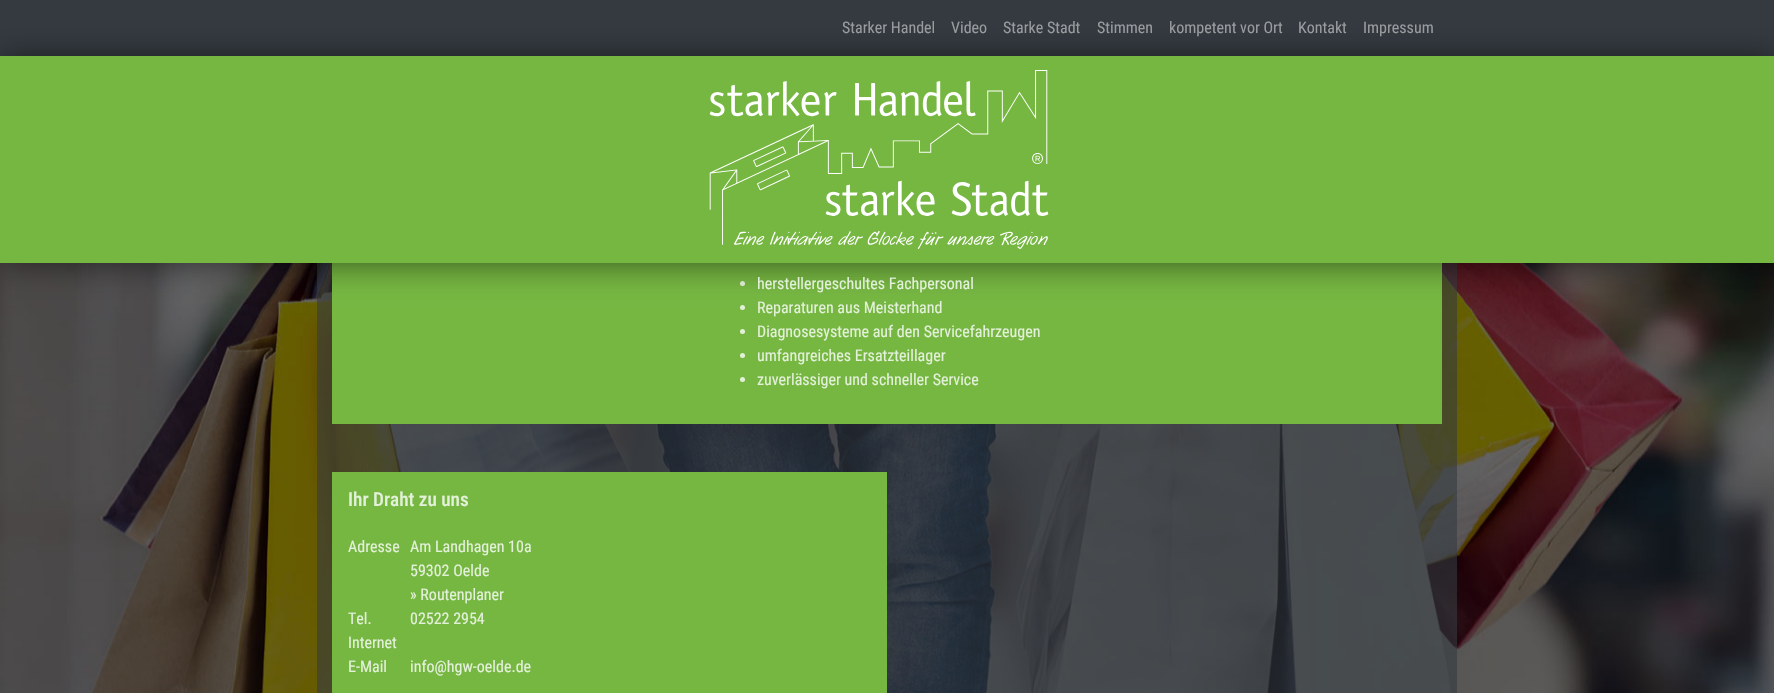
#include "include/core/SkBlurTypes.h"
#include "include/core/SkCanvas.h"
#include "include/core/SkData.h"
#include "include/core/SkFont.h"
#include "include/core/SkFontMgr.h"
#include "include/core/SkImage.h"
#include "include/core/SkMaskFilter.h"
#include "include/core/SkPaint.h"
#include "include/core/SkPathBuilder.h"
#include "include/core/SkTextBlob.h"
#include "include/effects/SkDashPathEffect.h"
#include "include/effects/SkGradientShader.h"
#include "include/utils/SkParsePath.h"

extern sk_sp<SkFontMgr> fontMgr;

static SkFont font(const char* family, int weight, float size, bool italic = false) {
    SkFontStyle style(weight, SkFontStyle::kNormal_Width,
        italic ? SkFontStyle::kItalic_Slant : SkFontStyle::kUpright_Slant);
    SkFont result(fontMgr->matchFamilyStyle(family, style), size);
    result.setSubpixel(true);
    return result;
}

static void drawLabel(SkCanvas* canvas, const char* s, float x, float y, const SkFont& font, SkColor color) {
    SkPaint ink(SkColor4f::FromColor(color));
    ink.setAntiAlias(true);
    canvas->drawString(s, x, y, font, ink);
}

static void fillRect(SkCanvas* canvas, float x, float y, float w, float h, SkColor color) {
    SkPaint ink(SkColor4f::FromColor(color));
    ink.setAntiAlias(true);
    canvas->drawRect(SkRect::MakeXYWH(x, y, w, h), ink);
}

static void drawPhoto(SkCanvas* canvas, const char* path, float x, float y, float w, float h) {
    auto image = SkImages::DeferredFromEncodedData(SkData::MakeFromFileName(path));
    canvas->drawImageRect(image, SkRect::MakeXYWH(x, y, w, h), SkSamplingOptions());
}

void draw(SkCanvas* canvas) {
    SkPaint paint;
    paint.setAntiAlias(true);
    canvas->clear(0xFFFFFFFF);
    drawPhoto(canvas, "assets/img1.png", 0, 263, 1774, 430);
    fillRect(canvas, 0, 0, 1774, 56, 0xFF343A40);
    fillRect(canvas, 317, 263, 1140, 430, 0x99343A40);
    fillRect(canvas, 332, 263, 1110, 161, 0xFF76B742);
    paint.setColor(0xFFE4F1DA);
    canvas->drawCircle(742.5f, 283.5f, 2.5f, paint);
    canvas->drawCircle(742.5f, 307.5f, 2.5f, paint);
    paint.setColor(0x80000000);
    paint.setMaskFilter(SkMaskFilter::MakeBlur(kNormal_SkBlurStyle, 15));
    canvas->drawRect(SkRect::MakeXYWH(2, 58, 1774, 207), paint);
    paint.setMaskFilter(nullptr);
    fillRect(canvas, 0, 56, 1774, 207, 0xFF76B742);
    drawPhoto(canvas, "assets/img2.png", 709, 70, 340, 179);
    SkFont font1 = font("Roboto Condensed", 400, 16);
    drawLabel(canvas, "Starker Handel", 842, 33, font1, 0xFF999C9F);
    drawLabel(canvas, "Video", 951, 33, font1, 0xFF999C9F);
    drawLabel(canvas, "Starke Stadt", 1003, 33, font1, 0xFF999C9F);
    drawLabel(canvas, "Stimmen", 1097, 33, font1, 0xFF999C9F);
    drawLabel(canvas, "kompetent vor Ort", 1169, 33, font1, 0xFF999C9F);
    drawLabel(canvas, "Kontakt", 1298, 33, font1, 0xFF999C9F);
    drawLabel(canvas, "Impressum", 1363, 33, font1, 0xFF999C9F);
    drawLabel(canvas, "herstellergeschultes Fachpersonal", 757, 289, font1, 0xFFE4F1DA);
    drawLabel(canvas, "Reparaturen aus Meisterhand", 757, 313, font1, 0xFFE4F1DA);
    paint.setColor(0xFFE4F1DA);
    canvas->drawCircle(742.5f, 331.5f, 2.5f, paint);
    drawLabel(canvas, "Diagnosesysteme auf den Servicefahrzeugen", 757, 337, font1, 0xFFE4F1DA);
    canvas->drawCircle(742.5f, 355.5f, 2.5f, paint);
    drawLabel(canvas, "umfangreiches Ersatzteillager", 757, 361, font1, 0xFFE4F1DA);
    canvas->drawCircle(742.5f, 379.5f, 2.5f, paint);
    drawLabel(canvas, "zuverlässiger und schneller Service", 757, 385, font1, 0xFFE4F1DA);
    fillRect(canvas, 332, 472, 555, 221, 0xFF76B742);
    SkFont font2 = font("Roboto Condensed", 500, 19.25f);
    drawLabel(canvas, "Ihr Draht zu uns", 348, 506, font2, 0xFFE4F1DA);
    drawLabel(canvas, "Adresse", 348, 552, font1, 0xFFE4F1DA);
    drawLabel(canvas, "Am Landhagen 10a", 410, 552, font1, 0xFFE4F1DA);
    drawLabel(canvas, "59302 Oelde", 410, 576, font1, 0xFFE4F1DA);
    drawLabel(canvas, "» Routenplaner", 410, 600, font1, 0xFFE4F1DA);
    drawLabel(canvas, "Tel.", 348, 624, font1, 0xFFE4F1DA);
    drawLabel(canvas, "02522 2954", 410, 624, font1, 0xFFE4F1DA);
    drawLabel(canvas, "Internet", 348, 648, font1, 0xFFE4F1DA);
    drawLabel(canvas, "E-Mail", 348, 672, font1, 0xFFE4F1DA);
    drawLabel(canvas, "info@hgw-oelde.de", 410, 672, font1, 0xFFE4F1DA);
}
